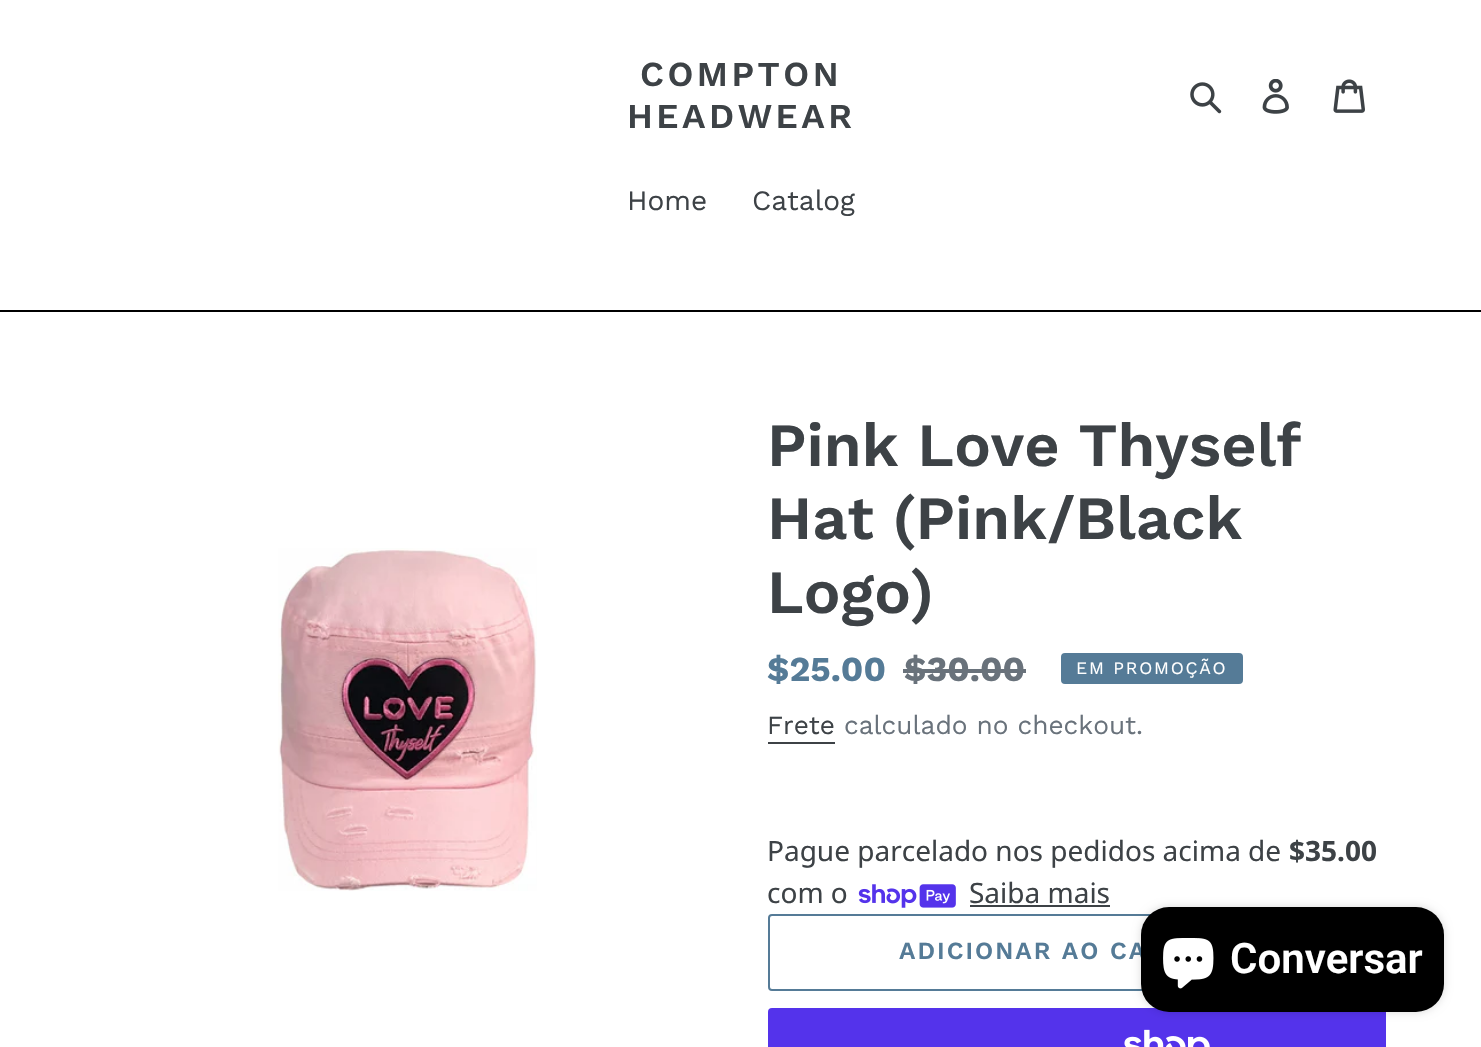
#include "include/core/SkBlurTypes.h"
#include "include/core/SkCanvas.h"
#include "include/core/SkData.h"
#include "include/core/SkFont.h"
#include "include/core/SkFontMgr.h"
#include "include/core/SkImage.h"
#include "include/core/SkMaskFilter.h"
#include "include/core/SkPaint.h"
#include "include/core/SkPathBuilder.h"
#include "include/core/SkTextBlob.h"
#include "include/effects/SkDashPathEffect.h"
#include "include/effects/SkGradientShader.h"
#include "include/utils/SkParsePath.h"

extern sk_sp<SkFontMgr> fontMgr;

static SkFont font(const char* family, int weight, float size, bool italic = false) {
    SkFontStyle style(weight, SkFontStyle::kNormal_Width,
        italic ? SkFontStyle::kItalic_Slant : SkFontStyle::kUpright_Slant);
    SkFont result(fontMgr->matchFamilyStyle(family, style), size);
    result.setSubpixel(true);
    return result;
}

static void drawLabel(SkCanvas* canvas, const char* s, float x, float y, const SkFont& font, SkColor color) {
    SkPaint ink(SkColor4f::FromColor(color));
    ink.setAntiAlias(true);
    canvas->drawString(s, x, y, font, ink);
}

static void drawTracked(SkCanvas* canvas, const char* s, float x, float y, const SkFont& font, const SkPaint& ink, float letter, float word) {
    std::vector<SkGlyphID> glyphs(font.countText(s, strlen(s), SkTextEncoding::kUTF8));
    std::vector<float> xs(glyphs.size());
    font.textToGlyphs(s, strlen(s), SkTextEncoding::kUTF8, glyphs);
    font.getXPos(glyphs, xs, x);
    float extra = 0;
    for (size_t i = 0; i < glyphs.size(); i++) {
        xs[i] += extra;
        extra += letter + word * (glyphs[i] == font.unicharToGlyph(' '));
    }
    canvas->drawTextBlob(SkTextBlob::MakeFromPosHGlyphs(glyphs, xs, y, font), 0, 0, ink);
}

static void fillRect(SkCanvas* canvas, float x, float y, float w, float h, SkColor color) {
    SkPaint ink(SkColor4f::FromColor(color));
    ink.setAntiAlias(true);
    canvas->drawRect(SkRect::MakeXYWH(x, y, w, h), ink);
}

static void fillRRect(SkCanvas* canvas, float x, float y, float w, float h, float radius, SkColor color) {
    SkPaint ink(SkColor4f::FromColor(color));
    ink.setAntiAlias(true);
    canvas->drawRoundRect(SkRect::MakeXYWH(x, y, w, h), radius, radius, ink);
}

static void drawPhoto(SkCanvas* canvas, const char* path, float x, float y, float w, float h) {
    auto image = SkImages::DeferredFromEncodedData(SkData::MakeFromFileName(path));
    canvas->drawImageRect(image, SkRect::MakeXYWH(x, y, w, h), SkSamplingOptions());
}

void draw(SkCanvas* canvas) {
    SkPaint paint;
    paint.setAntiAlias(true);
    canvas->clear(0xFFFFFFFF);
    SkFont font1 = font("Work Sans", 600, 35);
    paint.setColor(0xFF3D4246);
    drawTracked(canvas, "COMPTON", 640, 86, font1, paint, 3.5f, 0);
    drawTracked(canvas, "HEADWEAR", 627, 128, font1, paint, 3.5f, 0);
    drawPhoto(canvas, "assets/img1.png", 1190, 82, 32, 32);
    drawPhoto(canvas, "assets/img2.png", 1262, 79, 27, 35);
    drawPhoto(canvas, "assets/img3.png", 1333, 79, 32, 34);
    fillRect(canvas, 0, 310, 1481, 2, 0xFF000000);
    SkFont font2 = font("Work Sans", 400, 28);
    drawLabel(canvas, "Home", 627, 210, font2, 0xFF3D4246);
    drawLabel(canvas, "Catalog", 752, 210, font2, 0xFF3D4246);
    drawPhoto(canvas, "assets/img4.png", 278, 548, 259, 343);
    SkFont font3 = font("Work Sans", 600, 61.25f);
    drawLabel(canvas, "Pink Love Thyself", 767, 466, font3, 0xFF3D4246);
    drawLabel(canvas, "Hat (Pink/Black", 767, 539, font3, 0xFF3D4246);
    drawLabel(canvas, "Logo)", 767, 613, font3, 0xFF3D4246);
    SkFont font4 = font("Work Sans", 700, 35);
    drawLabel(canvas, "$25.00", 767, 681, font4, 0xFF557B97);
    drawLabel(canvas, "$30.00", 904, 681, font4, 0xFF69727B);
    fillRect(canvas, 903, 669, 123, 4, 0xFF69727B);
    paint.setColor(0xFF557B97);
    canvas->drawRoundRect(SkRect::MakeXYWH(1062, 654, 180, 29), 3, 3, paint);
    paint.setStroke(true);
    paint.setStrokeWidth(2);
    canvas->drawRoundRect(SkRect::MakeXYWH(1062, 654, 180, 29), 3, 3, paint);
    SkFont font5 = font("Work Sans", 400, 17.5f);
    paint.setStroke(false);
    paint.setColor(0xFFFFFFFF);
    drawTracked(canvas, "EM PROMOÇÃO", 1076, 674, font5, paint, 1.75f, 0);
    SkFont font6 = font("Work Sans", 400, 26.25f);
    drawLabel(canvas, "Frete", 767, 734, font6, 0xFF3D4246);
    fillRect(canvas, 768, 742, 67, 2, 0xFF3D4246);
    drawLabel(canvas, "calculado no checkout.", 844, 734, font6, 0xFF69727B);
    SkFont font7 = font("Noto Sans", 400, 28);
    drawLabel(canvas, "Pague parcelado nos pedidos acima de", 767, 861, font7, 0xFF3D4246);
    SkFont font8 = font("Noto Sans", 700, 28);
    drawLabel(canvas, "$35.00", 1289, 861, font8, 0xFF3D4246);
    drawLabel(canvas, "com o", 767, 903, font7, 0xFF3D4246);
    drawPhoto(canvas, "assets/img5.png", 858, 884, 98, 24);
    drawLabel(canvas, "Saiba mais", 969, 903, font7, 0xFF3D4246);
    fillRect(canvas, 970, 905, 140, 2, 0xFF3D4246);
    paint.setStroke(true);
    paint.setColor(0xFF557B97);
    canvas->drawRoundRect(SkRect::MakeXYWH(769, 915, 616, 75), 3, 3, paint);
    SkFont font9 = font("Work Sans", 600, 24.5f);
    paint.setStroke(false);
    drawTracked(canvas, "ADICIONAR AO CA", 899, 959, font9, paint, 2, 0);
    fillRRect(canvas, 768, 1008, 618, 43, 4, 0xFF5433EB);
    drawPhoto(canvas, "assets/img6.png", 1124, 1029, 86, 18);
    paint.setColor(0x26000000);
    paint.setMaskFilter(SkMaskFilter::MakeBlur(kNormal_SkBlurStyle, 4.5f));
    canvas->drawRoundRect(SkRect::MakeXYWH(1141, 907, 303, 105), 28, 28, paint);
    paint.setMaskFilter(nullptr);
    fillRRect(canvas, 1141, 907, 303, 105, 28, 0xFF000000);
    drawPhoto(canvas, "assets/img7.png", 1163, 938, 51, 51);
    SkFont font10 = font("Roboto", 600, 42);
    drawLabel(canvas, "Conversar", 1230, 973, font10, 0xFFFFFFFF);
}
